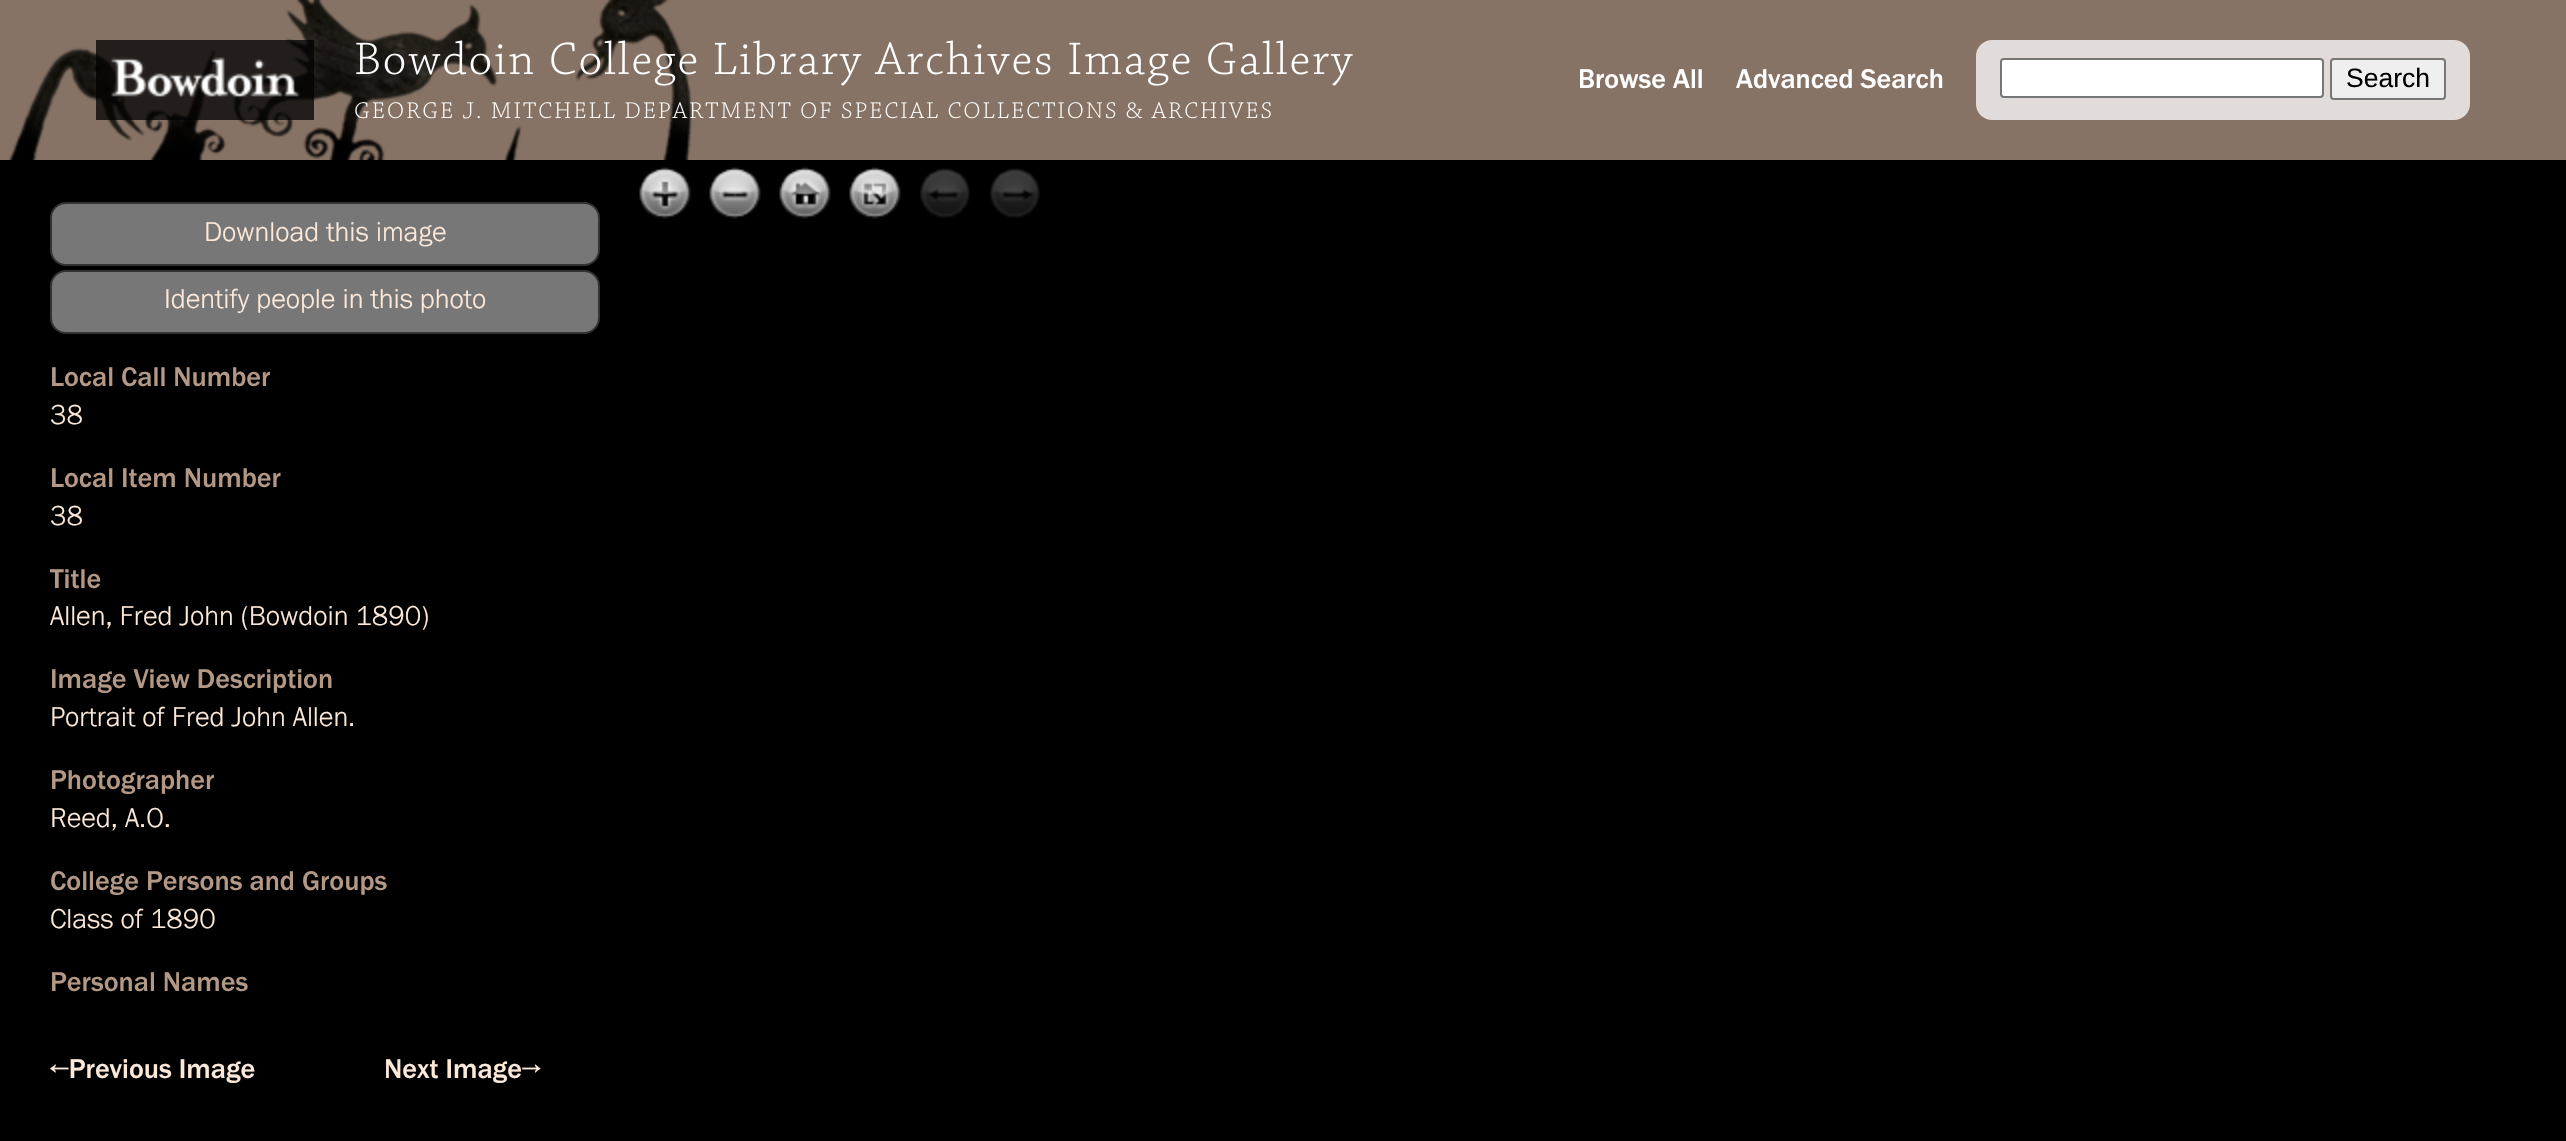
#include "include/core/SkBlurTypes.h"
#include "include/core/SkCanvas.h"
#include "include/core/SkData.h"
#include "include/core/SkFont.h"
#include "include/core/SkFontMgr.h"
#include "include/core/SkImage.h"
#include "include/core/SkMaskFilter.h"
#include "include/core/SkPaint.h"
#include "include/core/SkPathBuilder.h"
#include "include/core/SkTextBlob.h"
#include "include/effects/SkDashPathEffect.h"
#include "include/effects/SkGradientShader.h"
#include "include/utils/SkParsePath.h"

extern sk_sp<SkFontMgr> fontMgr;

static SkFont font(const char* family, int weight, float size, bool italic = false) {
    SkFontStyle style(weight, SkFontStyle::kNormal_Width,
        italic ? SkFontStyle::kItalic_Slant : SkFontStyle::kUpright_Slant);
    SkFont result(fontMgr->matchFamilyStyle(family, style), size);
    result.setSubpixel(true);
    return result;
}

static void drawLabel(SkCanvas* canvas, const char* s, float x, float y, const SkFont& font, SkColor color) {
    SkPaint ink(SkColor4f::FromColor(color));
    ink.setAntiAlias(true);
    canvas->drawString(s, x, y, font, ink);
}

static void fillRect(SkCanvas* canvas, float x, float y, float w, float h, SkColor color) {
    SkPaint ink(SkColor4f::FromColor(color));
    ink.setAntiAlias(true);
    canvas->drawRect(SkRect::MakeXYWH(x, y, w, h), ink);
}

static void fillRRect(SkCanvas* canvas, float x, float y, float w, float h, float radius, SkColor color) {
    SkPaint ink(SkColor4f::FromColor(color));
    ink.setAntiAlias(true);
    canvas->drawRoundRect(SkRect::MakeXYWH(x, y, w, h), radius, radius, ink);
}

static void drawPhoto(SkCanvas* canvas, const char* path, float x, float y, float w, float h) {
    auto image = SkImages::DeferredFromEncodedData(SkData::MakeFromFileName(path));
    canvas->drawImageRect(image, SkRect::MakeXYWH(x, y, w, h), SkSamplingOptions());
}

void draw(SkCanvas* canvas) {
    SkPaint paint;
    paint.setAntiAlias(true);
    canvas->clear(0xFF000000);
    fillRect(canvas, 0, 0, 2566, 160, 0xFF877365);
    drawPhoto(canvas, "assets/img1.png", 9, 0, 684, 160);
    drawPhoto(canvas, "assets/img2.png", 96, 40, 218, 80);
    drawPhoto(canvas, "assets/img3.png", 356, 40, 997, 46);
    drawPhoto(canvas, "assets/img4.png", 355, 102, 916, 17);
    SkFont font1 = font("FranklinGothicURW", 400, 28);
    drawLabel(canvas, "Browse All", 1578, 88, font1, 0xFFFFFFFF);
    drawLabel(canvas, "Advanced Search", 1736, 88, font1, 0xFFFFFFFF);
    fillRRect(canvas, 1976, 40, 494, 80, 16, 0xFFE1DCD9);
    paint.setColor(0xFFFFFFFF);
    canvas->drawRoundRect(SkRect::MakeXYWH(2001, 59, 322, 38), 3, 3, paint);
    paint.setStroke(true);
    paint.setStrokeWidth(2);
    paint.setColor(0xFF767676);
    canvas->drawRoundRect(SkRect::MakeXYWH(2001, 59, 322, 38), 3, 3, paint);
    paint.setStroke(false);
    paint.setColor(0xFFEFEFEF);
    canvas->drawRoundRect(SkRect::MakeXYWH(2331, 59, 114, 40), 3, 3, paint);
    paint.setStroke(true);
    paint.setColor(0xFF767676);
    canvas->drawRoundRect(SkRect::MakeXYWH(2331, 59, 114, 40), 3, 3, paint);
    SkFont font2 = font("Liberation Sans", 400, 26.5f);
    drawLabel(canvas, "Search", 2346, 87, font2, 0xFF000000);
    drawPhoto(canvas, "assets/img5.png", 639, 167, 52, 52);
    drawPhoto(canvas, "assets/img6.png", 639, 167, 52, 52);
    drawPhoto(canvas, "assets/img7.png", 709, 167, 52, 52);
    drawPhoto(canvas, "assets/img8.png", 709, 167, 52, 52);
    drawPhoto(canvas, "assets/img9.png", 779, 167, 52, 52);
    drawPhoto(canvas, "assets/img10.png", 779, 167, 52, 52);
    drawPhoto(canvas, "assets/img11.png", 849, 167, 52, 52);
    drawPhoto(canvas, "assets/img12.png", 849, 167, 52, 52);
    drawPhoto(canvas, "assets/img13.png", 920, 168, 50, 50);
    drawPhoto(canvas, "assets/img14.png", 920, 168, 50, 50);
    drawPhoto(canvas, "assets/img15.png", 990, 168, 50, 50);
    drawPhoto(canvas, "assets/img16.png", 990, 168, 50, 50);
    paint.setStroke(false);
    paint.setColor(0xFF777777);
    canvas->drawRoundRect(SkRect::MakeXYWH(51, 203, 548, 62), 15, 15, paint);
    paint.setStroke(true);
    paint.setColor(0xFF333333);
    canvas->drawRoundRect(SkRect::MakeXYWH(51, 203, 548, 62), 15, 15, paint);
    SkFont font3 = font("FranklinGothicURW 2", 400, 28.1f);
    drawLabel(canvas, "Download this image", 204, 241, font3, 0xFFFCE9D9);
    paint.setStroke(false);
    paint.setColor(0xFF777777);
    canvas->drawRoundRect(SkRect::MakeXYWH(51, 271, 548, 62), 15, 15, paint);
    paint.setStroke(true);
    paint.setColor(0xFF333333);
    canvas->drawRoundRect(SkRect::MakeXYWH(51, 271, 548, 62), 15, 15, paint);
    drawLabel(canvas, "Identify people in this photo", 164, 308, font3, 0xFFFCE9D9);
    SkFont font4 = font("FranklinGothicURW", 400, 28.1f);
    drawLabel(canvas, "Local Call Number", 50, 386, font4, 0xFFB39886);
    drawLabel(canvas, "38", 50, 424, font3, 0xFFFCE9D9);
    drawLabel(canvas, "Local Item Number", 50, 487, font4, 0xFFB39886);
    drawLabel(canvas, "38", 50, 525, font3, 0xFFFCE9D9);
    drawLabel(canvas, "Title", 50, 588, font4, 0xFFB39886);
    drawLabel(canvas, "Allen, Fred John (Bowdoin 1890)", 50, 625, font3, 0xFFFCE9D9);
    drawLabel(canvas, "Image View Description", 50, 688, font4, 0xFFB39886);
    drawLabel(canvas, "Portrait of Fred John Allen.", 50, 726, font3, 0xFFFCE9D9);
    drawLabel(canvas, "Photographer", 50, 789, font4, 0xFFB39886);
    drawLabel(canvas, "Reed, A.O.", 50, 827, font3, 0xFFFCE9D9);
    drawLabel(canvas, "College Persons and Groups", 50, 890, font4, 0xFFB39886);
    drawLabel(canvas, "Class of 1890", 50, 928, font3, 0xFFFCE9D9);
    drawLabel(canvas, "Personal Names", 50, 991, font4, 0xFFB39886);
    drawLabel(canvas, "←Previous Image", 50, 1078, font4, 0xFFFCE9D9);
    drawLabel(canvas, "Next Image→", 384, 1078, font4, 0xFFFCE9D9);
}
